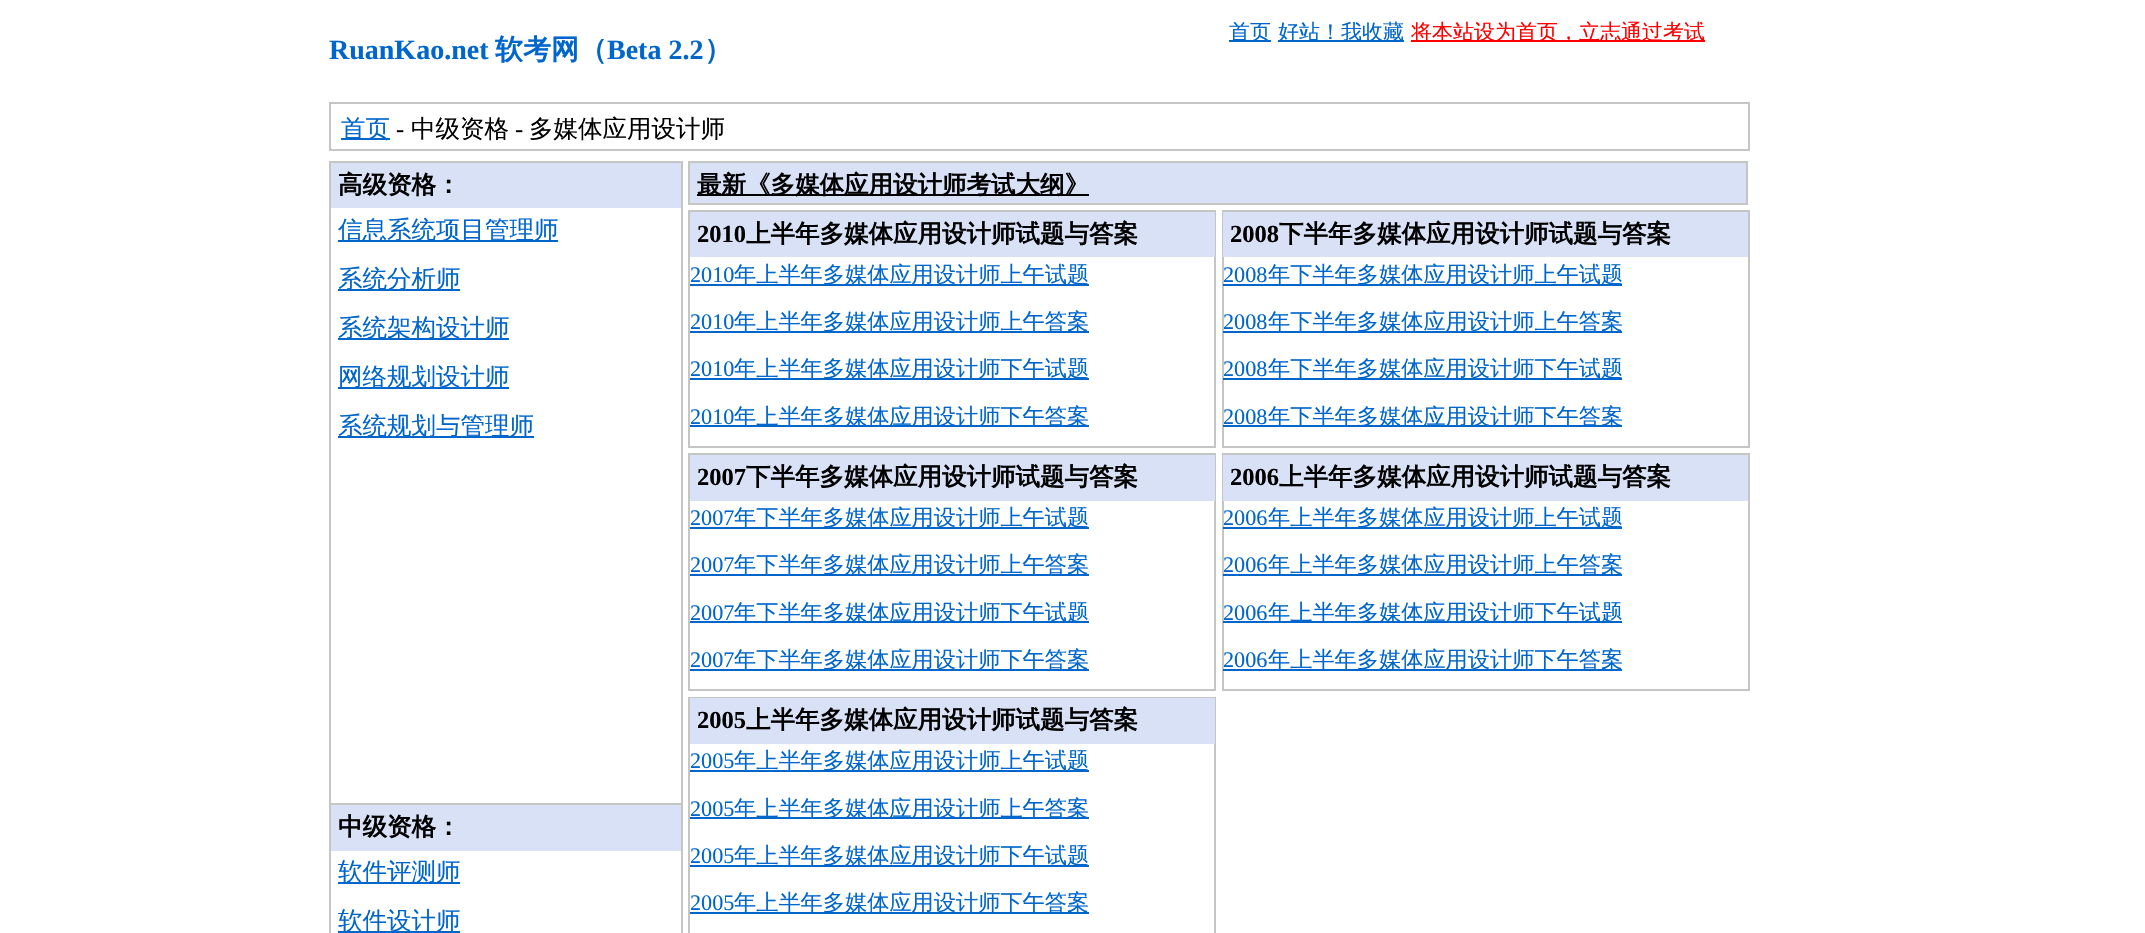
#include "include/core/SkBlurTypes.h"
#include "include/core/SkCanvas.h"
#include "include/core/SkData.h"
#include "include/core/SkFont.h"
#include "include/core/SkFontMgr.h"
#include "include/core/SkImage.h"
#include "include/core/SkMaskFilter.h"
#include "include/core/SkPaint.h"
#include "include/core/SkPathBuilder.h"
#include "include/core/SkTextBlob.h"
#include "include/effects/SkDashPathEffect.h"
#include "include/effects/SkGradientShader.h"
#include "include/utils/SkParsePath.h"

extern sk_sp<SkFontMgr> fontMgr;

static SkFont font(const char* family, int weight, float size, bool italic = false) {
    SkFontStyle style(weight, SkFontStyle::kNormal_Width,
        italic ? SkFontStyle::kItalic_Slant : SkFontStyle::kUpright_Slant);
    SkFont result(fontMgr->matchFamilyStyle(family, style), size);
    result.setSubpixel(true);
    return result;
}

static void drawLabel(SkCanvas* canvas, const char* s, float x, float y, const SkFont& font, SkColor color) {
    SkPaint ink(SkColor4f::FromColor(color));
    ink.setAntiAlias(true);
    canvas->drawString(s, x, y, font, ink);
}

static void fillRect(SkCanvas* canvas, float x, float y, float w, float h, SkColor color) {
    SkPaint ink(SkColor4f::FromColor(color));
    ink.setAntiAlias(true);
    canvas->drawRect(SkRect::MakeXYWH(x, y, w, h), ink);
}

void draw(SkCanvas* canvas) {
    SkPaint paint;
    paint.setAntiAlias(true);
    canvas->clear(0xFFFFFFFF);
    fillRect(canvas, 1229, 40, 42, 2, 0xFF0066CC);
    SkFont font1 = font("WenQuanYi Zen Hei", 500, 21);
    drawLabel(canvas, "首页", 1229, 39, font1, 0xFF0066CC);
    fillRect(canvas, 1278, 40, 126, 2, 0xFF0066CC);
    drawLabel(canvas, "好站！我收藏", 1278, 39, font1, 0xFF0066CC);
    fillRect(canvas, 1411, 40, 294, 2, 0xFFFF0000);
    drawLabel(canvas, "将本站设为首页，立志通过考试", 1411, 39, font1, 0xFFFF0000);
    SkFont font2 = font("Liberation Serif", 700, 28);
    drawLabel(canvas, "RuanKao.net", 329, 59, font2, 0xFF0066CC);
    SkFont font3 = font("WenQuanYi Zen Hei", 700, 28);
    drawLabel(canvas, "软考网（", 495, 59, font3, 0xFF0066CC);
    drawLabel(canvas, "Beta 2.2", 607, 59, font2, 0xFF0066CC);
    drawLabel(canvas, "）", 704, 59, font3, 0xFF0066CC);
    paint.setStroke(true);
    paint.setStrokeWidth(2);
    paint.setColor(0xFFC5C6C4);
    canvas->drawRect(SkRect::MakeXYWH(330, 103, 1419, 47), paint);
    fillRect(canvas, 341, 138, 49, 2, 0xFF0066CC);
    SkFont font4 = font("WenQuanYi Zen Hei", 500, 24.5f);
    drawLabel(canvas, "首页", 341, 137, font4, 0xFF0066CC);
    SkFont font5 = font("Liberation Serif", 400, 24.5f);
    drawLabel(canvas, "-", 396, 137, font5, 0xFF000000);
    drawLabel(canvas, "中级资格", 411, 137, font4, 0xFF000000);
    drawLabel(canvas, "-", 515, 137, font5, 0xFF000000);
    drawLabel(canvas, "多媒体应用设计师", 529, 137, font4, 0xFF000000);
    fillRect(canvas, 681, 161, 2, 772, 0xFFC5C6C4);
    fillRect(canvas, 329, 161, 2, 772, 0xFFC5C6C4);
    fillRect(canvas, 331, 163, 350, 45, 0xFFD9E1F7);
    fillRect(canvas, 331, 161, 350, 2, 0xFFC5C6C4);
    SkFont font6 = font("WenQuanYi Zen Hei", 700, 24.5f);
    drawLabel(canvas, "高级资格：", 338, 193, font6, 0xFF000000);
    fillRect(canvas, 338, 240, 220, 2, 0xFF0066CC);
    drawLabel(canvas, "信息系统项目管理师", 338, 238, font4, 0xFF0066CC);
    fillRect(canvas, 338, 289, 122, 2, 0xFF0066CC);
    drawLabel(canvas, "系统分析师", 338, 287, font4, 0xFF0066CC);
    fillRect(canvas, 338, 338, 171, 2, 0xFF0066CC);
    drawLabel(canvas, "系统架构设计师", 338, 336, font4, 0xFF0066CC);
    fillRect(canvas, 338, 387, 171, 2, 0xFF0066CC);
    drawLabel(canvas, "网络规划设计师", 338, 385, font4, 0xFF0066CC);
    fillRect(canvas, 338, 436, 196, 2, 0xFF0066CC);
    drawLabel(canvas, "系统规划与管理师", 338, 434, font4, 0xFF0066CC);
    fillRect(canvas, 331, 805, 350, 46, 0xFFD9E1F7);
    fillRect(canvas, 331, 803, 350, 2, 0xFFC5C6C4);
    drawLabel(canvas, "中级资格：", 338, 835, font6, 0xFF000000);
    fillRect(canvas, 338, 882, 122, 2, 0xFF0066CC);
    drawLabel(canvas, "软件评测师", 338, 880, font4, 0xFF0066CC);
    fillRect(canvas, 338, 931, 122, 2, 0xFF0066CC);
    drawLabel(canvas, "软件设计师", 338, 929, font4, 0xFF0066CC);
    paint.setStroke(false);
    paint.setColor(0xFFD9E1F7);
    canvas->drawRect(SkRect::MakeXYWH(689, 162, 1058, 42), paint);
    paint.setStroke(true);
    paint.setColor(0xFFC5C6C4);
    canvas->drawRect(SkRect::MakeXYWH(689, 162, 1058, 42), paint);
    fillRect(canvas, 697, 194, 392, 2, 0xFF000000);
    drawLabel(canvas, "最新《多媒体应用设计师考试大纲》", 697, 193, font6, 0xFF000000);
    canvas->drawRect(SkRect::MakeXYWH(689, 211, 526, 236), paint);
    fillRect(canvas, 690, 212, 525, 45, 0xFFD9E1F7);
    SkFont font7 = font("Liberation Serif", 700, 24.5f);
    drawLabel(canvas, "2010", 697, 242, font7, 0xFF000000);
    drawLabel(canvas, "上半年多媒体应用设计师试题与答案", 746, 242, font6, 0xFF000000);
    SkFont font8 = font("Liberation Serif", 400, 22.2f);
    drawLabel(canvas, "2010", 690, 282, font8, 0xFF0066CC);
    fillRect(canvas, 690, 284, 399, 2, 0xFF0066CC);
    SkFont font9 = font("WenQuanYi Zen Hei", 500, 22.2f);
    drawLabel(canvas, "年上半年多媒体应用设计师上午试题", 734, 282, font9, 0xFF0066CC);
    drawLabel(canvas, "2010", 690, 329, font8, 0xFF0066CC);
    fillRect(canvas, 690, 331, 399, 2, 0xFF0066CC);
    drawLabel(canvas, "年上半年多媒体应用设计师上午答案", 734, 329, font9, 0xFF0066CC);
    drawLabel(canvas, "2010", 690, 376, font8, 0xFF0066CC);
    fillRect(canvas, 690, 378, 399, 2, 0xFF0066CC);
    drawLabel(canvas, "年上半年多媒体应用设计师下午试题", 734, 376, font9, 0xFF0066CC);
    drawLabel(canvas, "2010", 690, 424, font8, 0xFF0066CC);
    fillRect(canvas, 690, 425, 399, 2, 0xFF0066CC);
    drawLabel(canvas, "年上半年多媒体应用设计师下午答案", 734, 424, font9, 0xFF0066CC);
    canvas->drawRect(SkRect::MakeXYWH(1223, 211, 526, 236), paint);
    fillRect(canvas, 1223, 212, 525, 45, 0xFFD9E1F7);
    drawLabel(canvas, "2008", 1230, 242, font7, 0xFF000000);
    drawLabel(canvas, "下半年多媒体应用设计师试题与答案", 1279, 242, font6, 0xFF000000);
    drawLabel(canvas, "2008", 1223, 282, font8, 0xFF0066CC);
    fillRect(canvas, 1223, 284, 399, 2, 0xFF0066CC);
    drawLabel(canvas, "年下半年多媒体应用设计师上午试题", 1268, 282, font9, 0xFF0066CC);
    drawLabel(canvas, "2008", 1223, 329, font8, 0xFF0066CC);
    fillRect(canvas, 1223, 331, 399, 2, 0xFF0066CC);
    drawLabel(canvas, "年下半年多媒体应用设计师上午答案", 1268, 329, font9, 0xFF0066CC);
    drawLabel(canvas, "2008", 1223, 376, font8, 0xFF0066CC);
    fillRect(canvas, 1223, 378, 399, 2, 0xFF0066CC);
    drawLabel(canvas, "年下半年多媒体应用设计师下午试题", 1268, 376, font9, 0xFF0066CC);
    drawLabel(canvas, "2008", 1223, 424, font8, 0xFF0066CC);
    fillRect(canvas, 1223, 425, 399, 2, 0xFF0066CC);
    drawLabel(canvas, "年下半年多媒体应用设计师下午答案", 1268, 424, font9, 0xFF0066CC);
    canvas->drawRect(SkRect::MakeXYWH(689, 454, 526, 236), paint);
    fillRect(canvas, 690, 455, 525, 46, 0xFFD9E1F7);
    drawLabel(canvas, "2007", 697, 485, font7, 0xFF000000);
    drawLabel(canvas, "下半年多媒体应用设计师试题与答案", 746, 485, font6, 0xFF000000);
    drawLabel(canvas, "2007", 690, 525, font8, 0xFF0066CC);
    fillRect(canvas, 690, 527, 399, 2, 0xFF0066CC);
    drawLabel(canvas, "年下半年多媒体应用设计师上午试题", 734, 525, font9, 0xFF0066CC);
    drawLabel(canvas, "2007", 690, 572, font8, 0xFF0066CC);
    fillRect(canvas, 690, 574, 399, 2, 0xFF0066CC);
    drawLabel(canvas, "年下半年多媒体应用设计师上午答案", 734, 572, font9, 0xFF0066CC);
    drawLabel(canvas, "2007", 690, 620, font8, 0xFF0066CC);
    fillRect(canvas, 690, 621, 399, 2, 0xFF0066CC);
    drawLabel(canvas, "年下半年多媒体应用设计师下午试题", 734, 620, font9, 0xFF0066CC);
    drawLabel(canvas, "2007", 690, 667, font8, 0xFF0066CC);
    fillRect(canvas, 690, 669, 399, 2, 0xFF0066CC);
    drawLabel(canvas, "年下半年多媒体应用设计师下午答案", 734, 667, font9, 0xFF0066CC);
    canvas->drawRect(SkRect::MakeXYWH(1223, 454, 526, 236), paint);
    fillRect(canvas, 1223, 455, 525, 46, 0xFFD9E1F7);
    drawLabel(canvas, "2006", 1230, 485, font7, 0xFF000000);
    drawLabel(canvas, "上半年多媒体应用设计师试题与答案", 1279, 485, font6, 0xFF000000);
    drawLabel(canvas, "2006", 1223, 525, font8, 0xFF0066CC);
    fillRect(canvas, 1223, 527, 399, 2, 0xFF0066CC);
    drawLabel(canvas, "年上半年多媒体应用设计师上午试题", 1268, 525, font9, 0xFF0066CC);
    drawLabel(canvas, "2006", 1223, 572, font8, 0xFF0066CC);
    fillRect(canvas, 1223, 574, 399, 2, 0xFF0066CC);
    drawLabel(canvas, "年上半年多媒体应用设计师上午答案", 1268, 572, font9, 0xFF0066CC);
    drawLabel(canvas, "2006", 1223, 620, font8, 0xFF0066CC);
    fillRect(canvas, 1223, 621, 399, 2, 0xFF0066CC);
    drawLabel(canvas, "年上半年多媒体应用设计师下午试题", 1268, 620, font9, 0xFF0066CC);
    drawLabel(canvas, "2006", 1223, 667, font8, 0xFF0066CC);
    fillRect(canvas, 1223, 669, 399, 2, 0xFF0066CC);
    drawLabel(canvas, "年上半年多媒体应用设计师下午答案", 1268, 667, font9, 0xFF0066CC);
    canvas->drawRect(SkRect::MakeXYWH(689, 698, 526, 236), paint);
    fillRect(canvas, 690, 698, 525, 46, 0xFFD9E1F7);
    drawLabel(canvas, "2005", 697, 728, font7, 0xFF000000);
    drawLabel(canvas, "上半年多媒体应用设计师试题与答案", 746, 728, font6, 0xFF000000);
    drawLabel(canvas, "2005", 690, 768, font8, 0xFF0066CC);
    fillRect(canvas, 690, 770, 399, 2, 0xFF0066CC);
    drawLabel(canvas, "年上半年多媒体应用设计师上午试题", 734, 768, font9, 0xFF0066CC);
    drawLabel(canvas, "2005", 690, 816, font8, 0xFF0066CC);
    fillRect(canvas, 690, 817, 399, 2, 0xFF0066CC);
    drawLabel(canvas, "年上半年多媒体应用设计师上午答案", 734, 816, font9, 0xFF0066CC);
    drawLabel(canvas, "2005", 690, 863, font8, 0xFF0066CC);
    fillRect(canvas, 690, 865, 399, 2, 0xFF0066CC);
    drawLabel(canvas, "年上半年多媒体应用设计师下午试题", 734, 863, font9, 0xFF0066CC);
    drawLabel(canvas, "2005", 690, 910, font8, 0xFF0066CC);
    fillRect(canvas, 690, 912, 399, 2, 0xFF0066CC);
    drawLabel(canvas, "年上半年多媒体应用设计师下午答案", 734, 910, font9, 0xFF0066CC);
}
